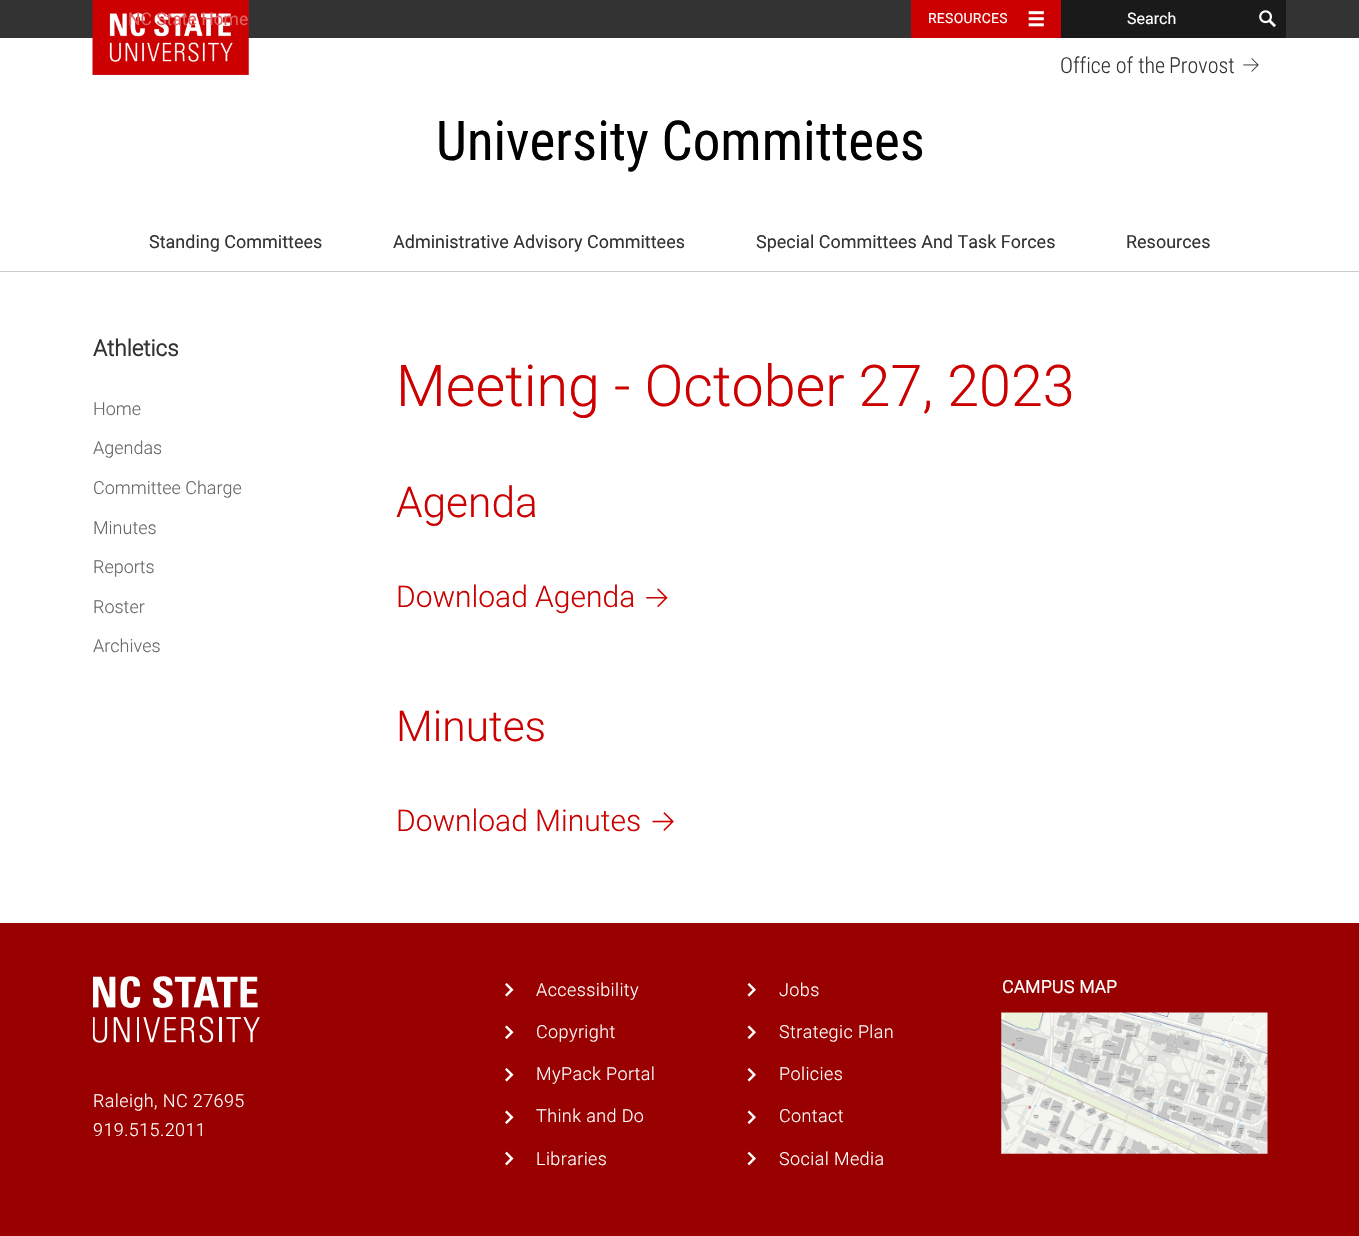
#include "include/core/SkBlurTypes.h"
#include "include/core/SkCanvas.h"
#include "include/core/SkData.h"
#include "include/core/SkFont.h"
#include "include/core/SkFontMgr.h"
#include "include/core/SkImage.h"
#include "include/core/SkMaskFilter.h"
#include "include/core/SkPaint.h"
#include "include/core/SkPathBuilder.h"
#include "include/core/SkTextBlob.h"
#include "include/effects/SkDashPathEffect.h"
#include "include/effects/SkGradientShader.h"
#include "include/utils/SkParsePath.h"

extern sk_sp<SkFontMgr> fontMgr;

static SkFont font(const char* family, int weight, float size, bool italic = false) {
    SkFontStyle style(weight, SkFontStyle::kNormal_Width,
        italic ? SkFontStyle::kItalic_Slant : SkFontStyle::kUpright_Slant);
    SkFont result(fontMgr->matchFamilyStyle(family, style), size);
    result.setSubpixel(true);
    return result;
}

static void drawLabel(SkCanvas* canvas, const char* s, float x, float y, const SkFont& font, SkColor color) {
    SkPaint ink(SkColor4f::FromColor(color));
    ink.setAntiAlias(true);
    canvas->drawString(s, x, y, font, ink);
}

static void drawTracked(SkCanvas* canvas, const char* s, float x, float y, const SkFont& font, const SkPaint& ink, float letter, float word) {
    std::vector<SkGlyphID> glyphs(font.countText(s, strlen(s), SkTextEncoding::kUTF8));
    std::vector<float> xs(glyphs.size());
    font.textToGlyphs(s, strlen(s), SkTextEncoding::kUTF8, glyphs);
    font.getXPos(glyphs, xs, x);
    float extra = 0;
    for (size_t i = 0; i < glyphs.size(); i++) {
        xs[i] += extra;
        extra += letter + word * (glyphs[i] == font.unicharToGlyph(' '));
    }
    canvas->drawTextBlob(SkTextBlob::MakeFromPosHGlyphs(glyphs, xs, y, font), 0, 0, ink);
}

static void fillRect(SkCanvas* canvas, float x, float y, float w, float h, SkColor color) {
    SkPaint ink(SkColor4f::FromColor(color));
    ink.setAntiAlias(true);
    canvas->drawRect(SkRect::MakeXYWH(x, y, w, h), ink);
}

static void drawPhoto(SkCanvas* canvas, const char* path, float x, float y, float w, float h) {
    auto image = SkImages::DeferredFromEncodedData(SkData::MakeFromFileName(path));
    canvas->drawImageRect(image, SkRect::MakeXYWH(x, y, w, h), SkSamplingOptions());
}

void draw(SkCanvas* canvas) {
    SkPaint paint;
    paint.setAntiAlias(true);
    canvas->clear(0xFFFFFFFF);
    fillRect(canvas, 0, 0, 1359, 38, 0xFF333333);
    drawPhoto(canvas, "assets/img1.png", 92, 0, 157, 75);
    SkFont font1 = font("Roboto", 400, 17.5f);
    drawLabel(canvas, "NC State Home", 128, 25, font1, 0xFFDF6364);
    fillRect(canvas, 911, 0, 150, 38, 0xFFCC0000);
    drawPhoto(canvas, "assets/img2.png", 1028, 11, 16, 16);
    SkFont font2 = font("Roboto", 400, 14);
    paint.setColor(0xFFFFFFFF);
    drawTracked(canvas, "RESOURCES", 928, 23, font2, paint, 0.25f, 0);
    fillRect(canvas, 1061, 0, 225, 38, 0xFF1A1A1A);
    SkFont font3 = font("Roboto", 400, 16);
    drawLabel(canvas, "Search", 1127, 24, font3, 0xFFFFFFFF);
    drawPhoto(canvas, "assets/img3.png", 1259, 10, 17, 18);
    SkFont font4 = font("Roboto Condensed", 300, 22);
    drawLabel(canvas, "Office of the", 1060, 73, font4, 0xFF333333);
    drawLabel(canvas, "Provost", 1169, 73, font4, 0xFF333333);
    drawPhoto(canvas, "assets/img4.png", 1243, 58, 16, 14);
    SkFont font5 = font("Roboto Condensed", 400, 55);
    drawLabel(canvas, "University Committees", 436, 160, font5, 0xFF000000);
    fillRect(canvas, 0, 271, 1359, 1, 0xFFCCCCCC);
    SkFont font6 = font("Roboto", 400, 18);
    drawLabel(canvas, "Standing Committees", 149, 248, font6, 0xFF333333);
    drawLabel(canvas, "Administrative Advisory Committees", 393, 248, font6, 0xFF333333);
    drawLabel(canvas, "Special Committees And Task Forces", 756, 248, font6, 0xFF333333);
    drawLabel(canvas, "Resources", 1126, 248, font6, 0xFF333333);
    SkFont font7 = font("Roboto", 700, 22.5f);
    drawLabel(canvas, "Athletics", 93, 356, font7, 0xFF333333);
    SkFont font8 = font("Roboto", 300, 18);
    drawLabel(canvas, "Home", 93, 415, font8, 0xFF666666);
    drawLabel(canvas, "Agendas", 93, 454, font8, 0xFF666666);
    drawLabel(canvas, "Committee Charge", 93, 494, font8, 0xFF666666);
    drawLabel(canvas, "Minutes", 93, 534, font8, 0xFF666666);
    drawLabel(canvas, "Reports", 93, 573, font8, 0xFF666666);
    drawLabel(canvas, "Roster", 93, 613, font8, 0xFF666666);
    drawLabel(canvas, "Archives", 93, 652, font8, 0xFF666666);
    SkFont font9 = font("Roboto", 300, 57.5f);
    drawLabel(canvas, "Meeting - October 27, 2023", 396, 406, font9, 0xFFCC0000);
    SkFont font10 = font("Roboto", 300, 42.5f);
    drawLabel(canvas, "Agenda", 396, 517, font10, 0xFFCC0000);
    SkFont font11 = font("Roboto", 300, 30);
    drawLabel(canvas, "Download Agenda", 396, 607, font11, 0xFFCC0000);
    drawPhoto(canvas, "assets/img5.png", 646, 588, 22, 20);
    drawLabel(canvas, "Minutes", 396, 741, font10, 0xFFCC0000);
    drawLabel(canvas, "Download Minutes", 396, 831, font11, 0xFFCC0000);
    drawPhoto(canvas, "assets/img6.png", 652, 812, 22, 19);
    fillRect(canvas, 0, 923, 1359, 313, 0xFF990000);
    drawPhoto(canvas, "assets/img7.png", 93, 976, 167, 67);
    drawTracked(canvas, "Raleigh, NC 27695", 93, 1107, font8, paint, 0.4f, 0);
    drawTracked(canvas, "919.515.2011", 93, 1136, font8, paint, 0.4f, 0);
    drawPhoto(canvas, "assets/img8.png", 505, 983, 9, 14);
    drawTracked(canvas, "Accessibility", 536, 996, font8, paint, 0.4f, 0);
    drawPhoto(canvas, "assets/img9.png", 505, 1025, 9, 14);
    drawTracked(canvas, "Copyright", 536, 1038, font8, paint, 0.4f, 0);
    drawPhoto(canvas, "assets/img8.png", 505, 1068, 9, 14);
    drawTracked(canvas, "MyPack Portal", 536, 1080, font8, paint, 0.4f, 0);
    drawPhoto(canvas, "assets/img9.png", 505, 1110, 9, 14);
    drawTracked(canvas, "Think and Do", 536, 1122, font8, paint, 0.4f, 0);
    drawPhoto(canvas, "assets/img10.png", 505, 1151, 9, 15);
    drawTracked(canvas, "Libraries", 536, 1165, font8, paint, 0.4f, 0);
    drawPhoto(canvas, "assets/img11.png", 747, 983, 9, 14);
    drawTracked(canvas, "Jobs", 779, 996, font8, paint, 0.4f, 0);
    drawPhoto(canvas, "assets/img12.png", 747, 1025, 9, 14);
    drawTracked(canvas, "Strategic Plan", 779, 1038, font8, paint, 0.4f, 0);
    drawPhoto(canvas, "assets/img11.png", 747, 1068, 9, 14);
    drawTracked(canvas, "Policies", 779, 1080, font8, paint, 0.4f, 0);
    drawPhoto(canvas, "assets/img12.png", 747, 1110, 9, 14);
    drawTracked(canvas, "Contact", 779, 1122, font8, paint, 0.4f, 0);
    drawPhoto(canvas, "assets/img13.png", 747, 1151, 9, 15);
    drawTracked(canvas, "Social Media", 779, 1165, font8, paint, 0.4f, 0);
    SkFont font12 = font("Roboto", 700, 17.5f);
    drawTracked(canvas, "CAMPUS MAP", 1002, 993, font12, paint, 0.4f, 0);
    drawPhoto(canvas, "assets/img14.png", 1001, 1012, 267, 142);
}
